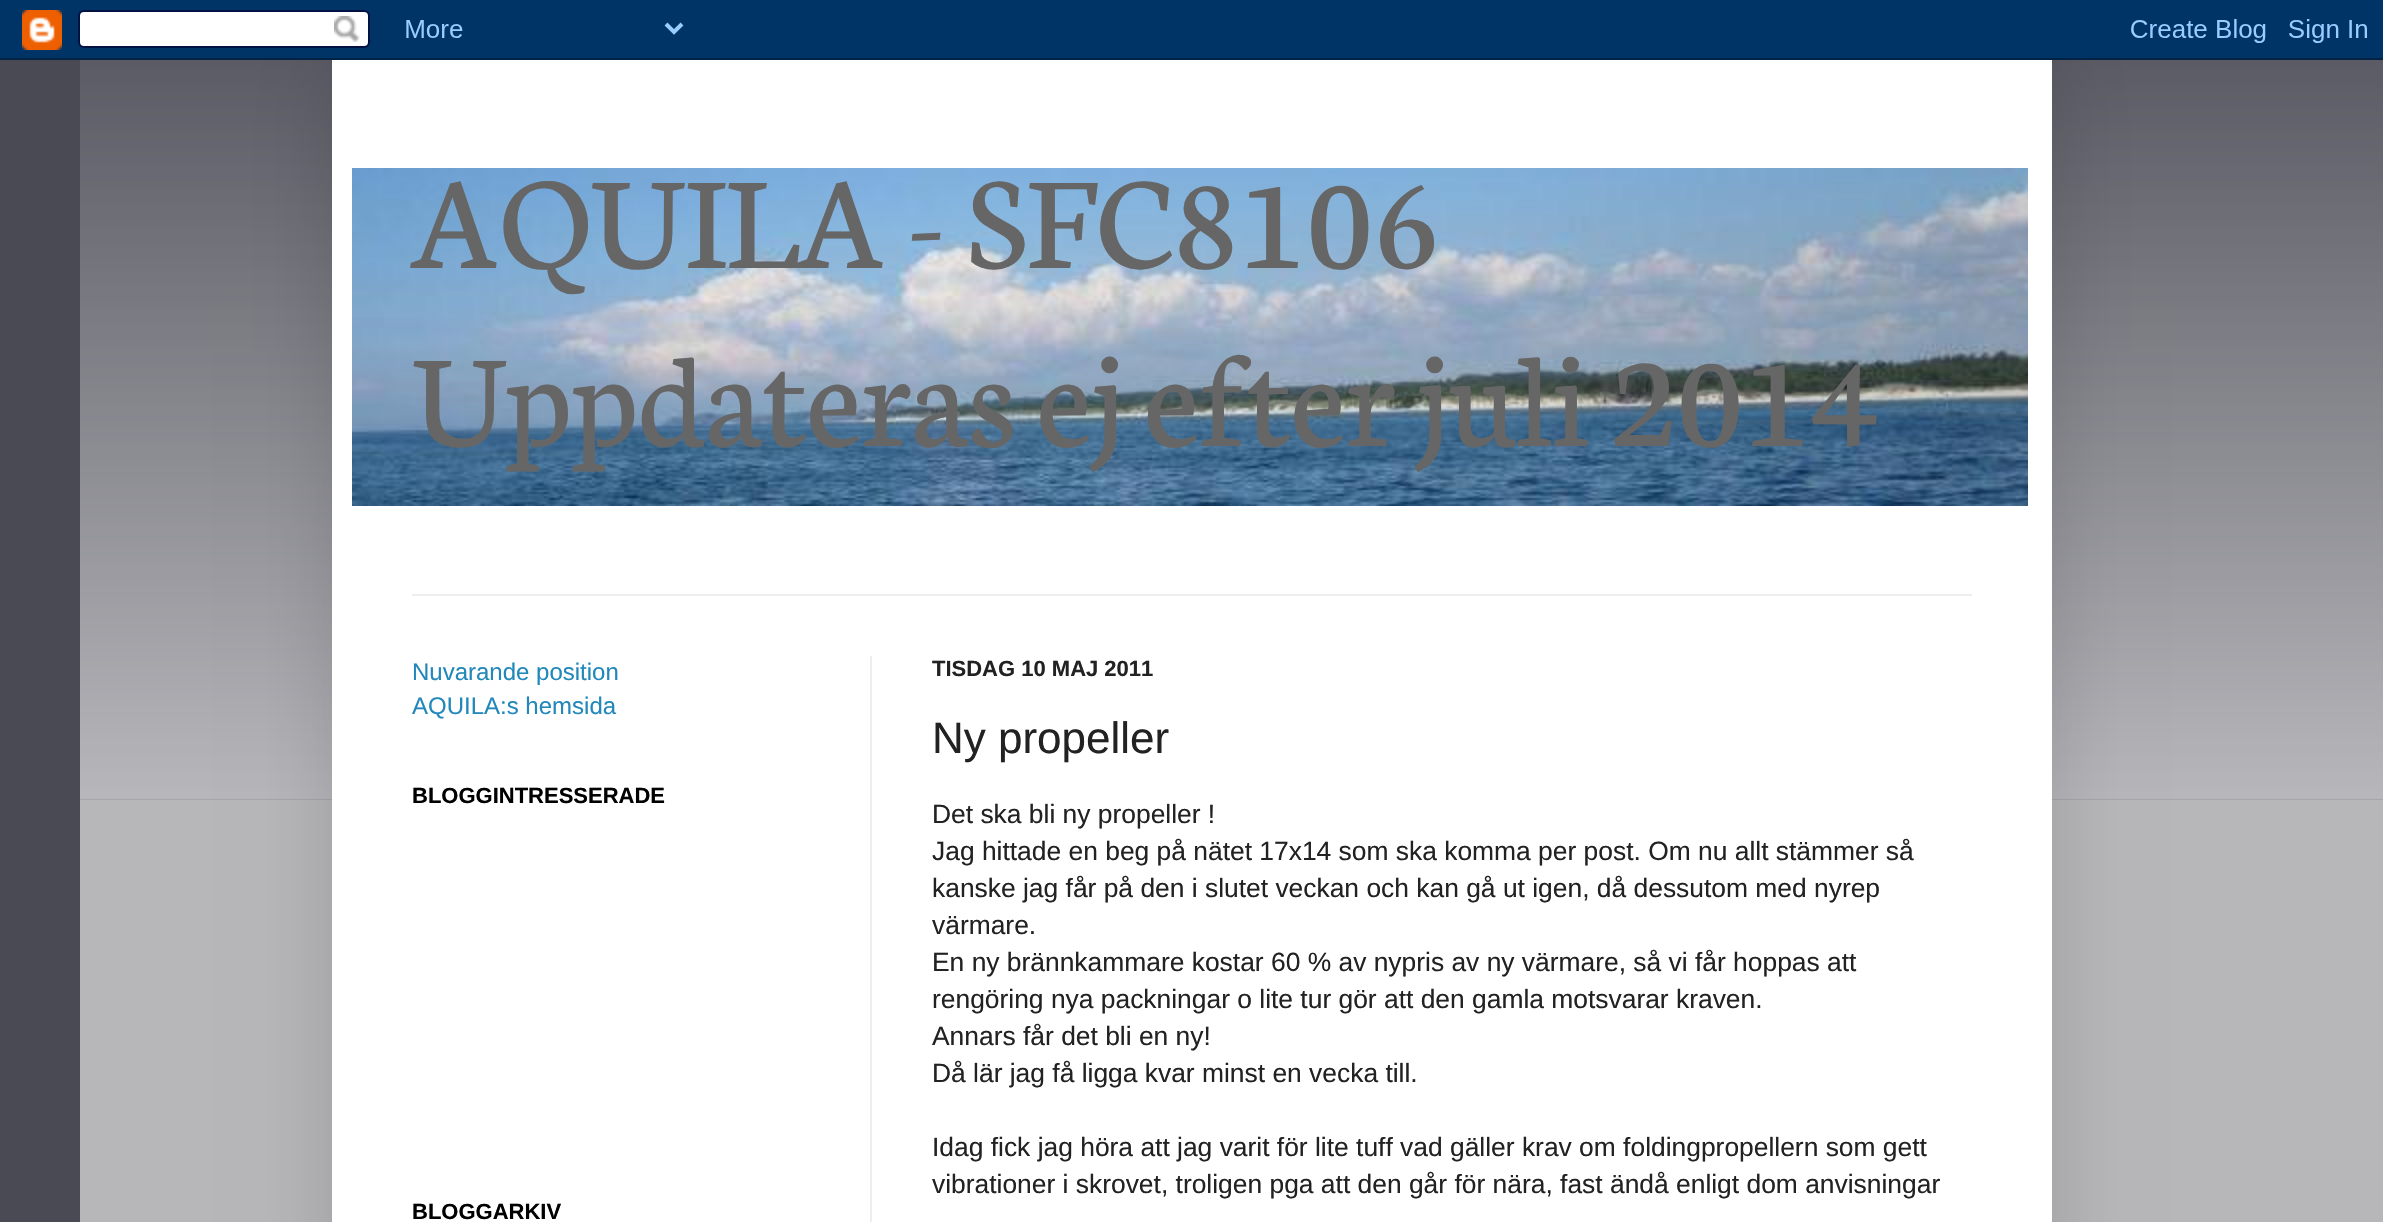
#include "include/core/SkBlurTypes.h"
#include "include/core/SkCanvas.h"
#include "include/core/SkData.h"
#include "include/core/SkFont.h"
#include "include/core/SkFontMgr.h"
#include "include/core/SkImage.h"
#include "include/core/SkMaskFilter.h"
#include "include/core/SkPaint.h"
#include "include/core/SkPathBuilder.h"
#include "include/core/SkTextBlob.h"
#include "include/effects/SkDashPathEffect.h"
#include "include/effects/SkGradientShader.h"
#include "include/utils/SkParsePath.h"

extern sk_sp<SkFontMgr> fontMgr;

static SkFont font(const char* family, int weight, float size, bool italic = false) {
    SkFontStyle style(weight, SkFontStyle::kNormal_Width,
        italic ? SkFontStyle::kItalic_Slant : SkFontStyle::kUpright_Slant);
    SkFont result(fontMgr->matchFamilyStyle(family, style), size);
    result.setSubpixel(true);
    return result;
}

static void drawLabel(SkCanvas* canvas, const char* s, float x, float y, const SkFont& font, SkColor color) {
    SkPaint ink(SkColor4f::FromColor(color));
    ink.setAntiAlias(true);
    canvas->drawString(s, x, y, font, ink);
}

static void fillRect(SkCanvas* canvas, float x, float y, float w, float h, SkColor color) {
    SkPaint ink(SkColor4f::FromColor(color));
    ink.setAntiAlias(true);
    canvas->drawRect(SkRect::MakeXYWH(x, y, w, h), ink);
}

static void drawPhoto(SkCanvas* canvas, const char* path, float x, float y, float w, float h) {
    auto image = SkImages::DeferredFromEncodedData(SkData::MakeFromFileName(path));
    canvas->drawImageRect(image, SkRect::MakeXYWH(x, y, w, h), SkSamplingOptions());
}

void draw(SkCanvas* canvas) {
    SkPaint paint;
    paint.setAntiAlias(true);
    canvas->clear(0xFF4A4A55);
    drawPhoto(canvas, "assets/img2.png", 80, 60, 2303, 740);
    fillRect(canvas, 80, 800, 2303, 422, 0xFFB7B7BA);
    paint.setColor(0x26000000);
    paint.setMaskFilter(SkMaskFilter::MakeBlur(kNormal_SkBlurStyle, 40));
    canvas->drawRect(SkRect::MakeXYWH(332, 60, 1720, 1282), paint);
    paint.setMaskFilter(nullptr);
    drawPhoto(canvas, "assets/img1.png", 0, 0, 2383, 60);
    fillRect(canvas, 332, 60, 1720, 1162, 0xFFFFFFFF);
    drawPhoto(canvas, "assets/img3.png", 352, 168, 1676, 338);
    SkFont font1 = font("Neuton", 400, 140);
    drawLabel(canvas, "AQUILA - SFC8106", 412, 268, font1, 0xFF666666);
    drawLabel(canvas, "Uppdateras ej efter juli 2014", 412, 446, font1, 0xFF666666);
    fillRect(canvas, 412, 594, 1560, 2, 0xFFEEEEEE);
    fillRect(canvas, 870, 656, 2, 566, 0xFFEEEEEE);
    SkFont font2 = font("Liberation Sans", 400, 24);
    drawLabel(canvas, "Nuvarande position", 412, 680, font2, 0xFF2288BB);
    drawLabel(canvas, "AQUILA:s hemsida", 412, 714, font2, 0xFF2288BB);
    SkFont font3 = font("Liberation Sans", 700, 22);
    drawLabel(canvas, "BLOGGINTRESSERADE", 412, 803, font3, 0xFF000000);
    drawLabel(canvas, "BLOGGARKIV", 412, 1219, font3, 0xFF000000);
    drawLabel(canvas, "TISDAG 10 MAJ 2011", 932, 676, font3, 0xFF222222);
    SkFont font4 = font("Liberation Sans", 400, 44);
    drawLabel(canvas, "Ny propeller", 932, 753, font4, 0xFF222222);
    SkFont font5 = font("Liberation Sans", 400, 26.4f);
    drawLabel(canvas, "Det ska bli ny propeller !", 932, 823, font5, 0xFF222222);
    drawLabel(canvas, "Jag hittade en beg på nätet 17x14 som ska komma per post. Om nu allt stämmer så", 932, 860, font5, 0xFF222222);
    drawLabel(canvas, "kanske jag får på den i slutet veckan och kan gå ut igen, då dessutom med nyrep", 932, 897, font5, 0xFF222222);
    drawLabel(canvas, "värmare.", 932, 934, font5, 0xFF222222);
    drawLabel(canvas, "En ny brännkammare kostar 60 % av nypris av ny värmare, så vi får hoppas att", 932, 971, font5, 0xFF222222);
    drawLabel(canvas, "rengöring nya packningar o lite tur gör att den gamla motsvarar kraven.", 932, 1008, font5, 0xFF222222);
    drawLabel(canvas, "Annars får det bli en ny!", 932, 1045, font5, 0xFF222222);
    drawLabel(canvas, "Då lär jag få ligga kvar minst en vecka till.", 932, 1082, font5, 0xFF222222);
    drawLabel(canvas, "Idag fick jag höra att jag varit för lite tuff vad gäller krav om foldingpropellern som gett", 932, 1156, font5, 0xFF222222);
    drawLabel(canvas, "vibrationer i skrovet, troligen pga att den går för nära, fast ändå enligt dom anvisningar", 932, 1193, font5, 0xFF222222);
}
